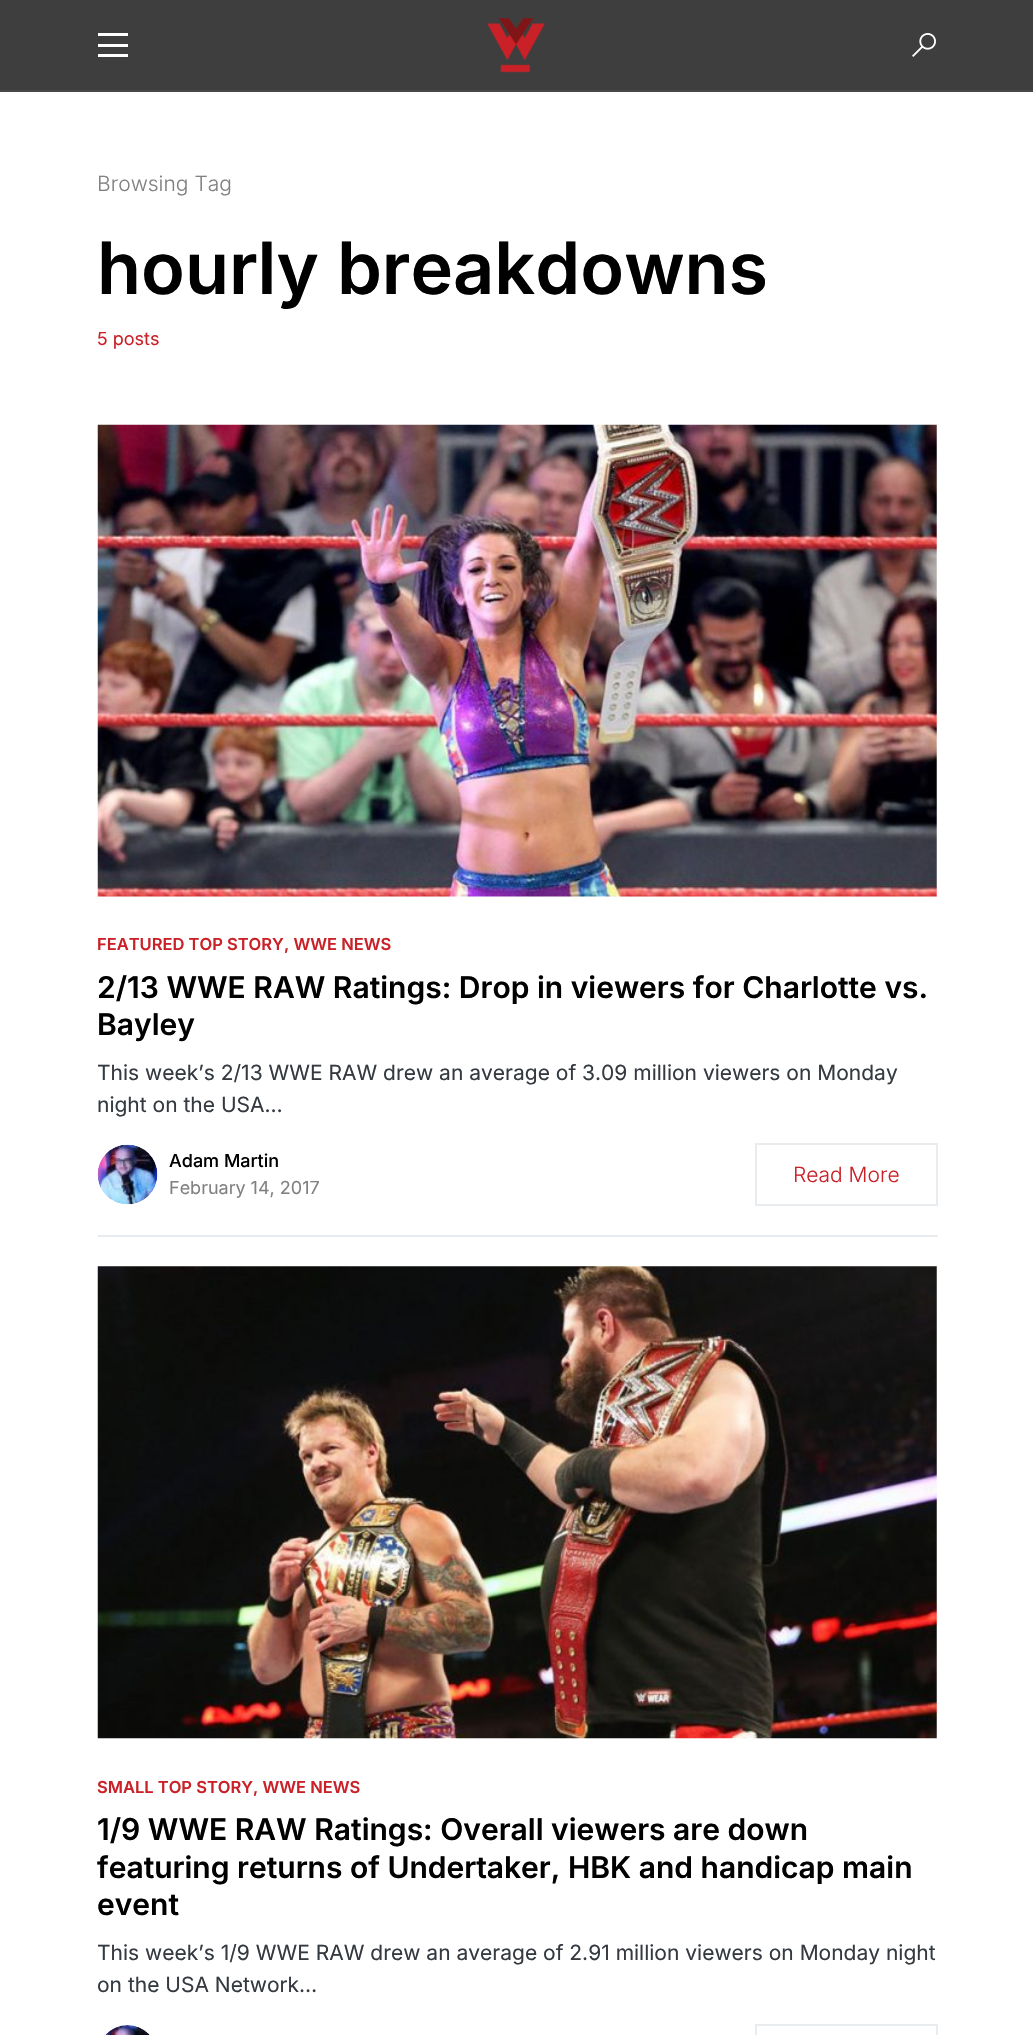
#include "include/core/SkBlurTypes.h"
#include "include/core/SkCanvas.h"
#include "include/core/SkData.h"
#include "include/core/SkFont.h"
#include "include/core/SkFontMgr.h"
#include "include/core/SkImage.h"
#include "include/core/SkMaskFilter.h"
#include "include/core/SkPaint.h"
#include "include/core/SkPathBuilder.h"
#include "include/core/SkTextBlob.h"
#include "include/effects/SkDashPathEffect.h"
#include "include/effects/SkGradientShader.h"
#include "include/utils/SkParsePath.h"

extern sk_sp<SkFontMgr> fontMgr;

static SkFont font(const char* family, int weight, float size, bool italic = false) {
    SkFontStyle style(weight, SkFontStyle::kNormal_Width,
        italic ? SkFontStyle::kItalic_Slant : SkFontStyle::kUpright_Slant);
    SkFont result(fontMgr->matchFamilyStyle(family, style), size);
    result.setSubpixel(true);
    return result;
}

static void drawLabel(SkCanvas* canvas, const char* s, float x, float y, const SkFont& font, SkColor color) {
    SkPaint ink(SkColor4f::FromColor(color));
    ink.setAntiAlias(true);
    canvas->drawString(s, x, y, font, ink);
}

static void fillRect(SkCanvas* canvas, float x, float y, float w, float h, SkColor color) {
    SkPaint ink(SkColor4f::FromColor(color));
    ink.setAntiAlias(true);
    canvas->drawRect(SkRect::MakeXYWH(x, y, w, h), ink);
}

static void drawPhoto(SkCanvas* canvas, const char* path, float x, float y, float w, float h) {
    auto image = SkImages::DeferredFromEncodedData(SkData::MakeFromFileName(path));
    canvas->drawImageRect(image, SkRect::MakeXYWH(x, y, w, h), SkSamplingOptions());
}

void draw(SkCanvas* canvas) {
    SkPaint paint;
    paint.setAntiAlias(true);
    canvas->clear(0xFFFFFFFF);
    fillRect(canvas, 0, 0, 1033, 90, 0xFF3E3E3E);
    fillRect(canvas, 0, 90, 1033, 2, 0xFF49494B);
    fillRect(canvas, 98, 33, 30, 3, 0xFFFFFFFF);
    fillRect(canvas, 98, 44, 30, 3, 0xFFFFFFFF);
    fillRect(canvas, 98, 54, 30, 3, 0xFFFFFFFF);
    drawPhoto(canvas, "assets/img1.png", 487, 17, 58, 56);
    drawPhoto(canvas, "assets/img2.png", 912, 33, 24, 24);
    SkFont font1 = font("Inter", 300, 21);
    drawLabel(canvas, "Browsing Tag", 97, 191, font1, 0xFF818181);
    SkFont font2 = font("Inter", 600, 72);
    drawLabel(canvas, "hourly breakdowns", 97, 294, font2, 0xFF000000);
    SkFont font3 = font("Inter", 400, 18);
    drawLabel(canvas, "5 posts", 97, 345, font3, 0xFFC92127);
    drawPhoto(canvas, "assets/img3.png", 97, 424, 840, 473);
    SkFont font4 = font("Inter", 600, 16.5f);
    drawLabel(canvas, "FEATURED TOP STORY", 97, 950, font4, 0xFFC92127);
    drawLabel(canvas, ", WWE NEWS", 284, 950, font4, 0xFFC92127);
    SkFont font5 = font("Inter", 600, 30);
    drawLabel(canvas, "2/13 WWE RAW Ratings: Drop in viewers for Charlotte vs.", 97, 998, font5, 0xFF000000);
    drawLabel(canvas, "Bayley", 97, 1035, font5, 0xFF000000);
    SkFont font6 = font("Inter", 400, 21);
    drawLabel(canvas, "This week’s 2/13 WWE RAW drew an average of 3.09 million viewers on Monday", 97, 1080, font6, 0xFF343A40);
    drawLabel(canvas, "night on the USA…", 97, 1112, font6, 0xFF343A40);
    drawPhoto(canvas, "assets/img4.png", 97, 1144, 61, 61);
    SkFont font7 = font("Inter", 500, 18);
    drawLabel(canvas, "Adam Martin", 169, 1167, font7, 0xFF000000);
    drawLabel(canvas, "February 14, 2017", 169, 1194, font3, 0xFF818181);
    paint.setStroke(true);
    paint.setStrokeWidth(2);
    paint.setColor(0xFFE9ECEF);
    canvas->drawRect(SkRect::MakeXYWH(756, 1144, 181, 61), paint);
    drawLabel(canvas, "Read More", 793, 1182, font1, 0xFFC92127);
    fillRect(canvas, 98, 1235, 840, 2, 0xFFE9ECEF);
    drawPhoto(canvas, "assets/img5.png", 97, 1266, 840, 473);
    drawLabel(canvas, "SMALL TOP STORY", 97, 1793, font4, 0xFFC92127);
    drawLabel(canvas, ", WWE NEWS", 253, 1793, font4, 0xFFC92127);
    drawLabel(canvas, "1/9 WWE RAW Ratings: Overall viewers are down", 97, 1840, font5, 0xFF000000);
    drawLabel(canvas, "featuring returns of Undertaker, HBK and handicap main", 97, 1878, font5, 0xFF000000);
    drawLabel(canvas, "event", 97, 1915, font5, 0xFF000000);
    drawLabel(canvas, "This week’s 1/9 WWE RAW drew an average of 2.91 million viewers on Monday night", 97, 1960, font6, 0xFF343A40);
    drawLabel(canvas, "on the USA Network…", 97, 1992, font6, 0xFF343A40);
    drawPhoto(canvas, "assets/img6.png", 105, 2025, 45, 10);
    canvas->drawRect(SkRect::MakeXYWH(756, 2025, 181, 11), paint);
}
